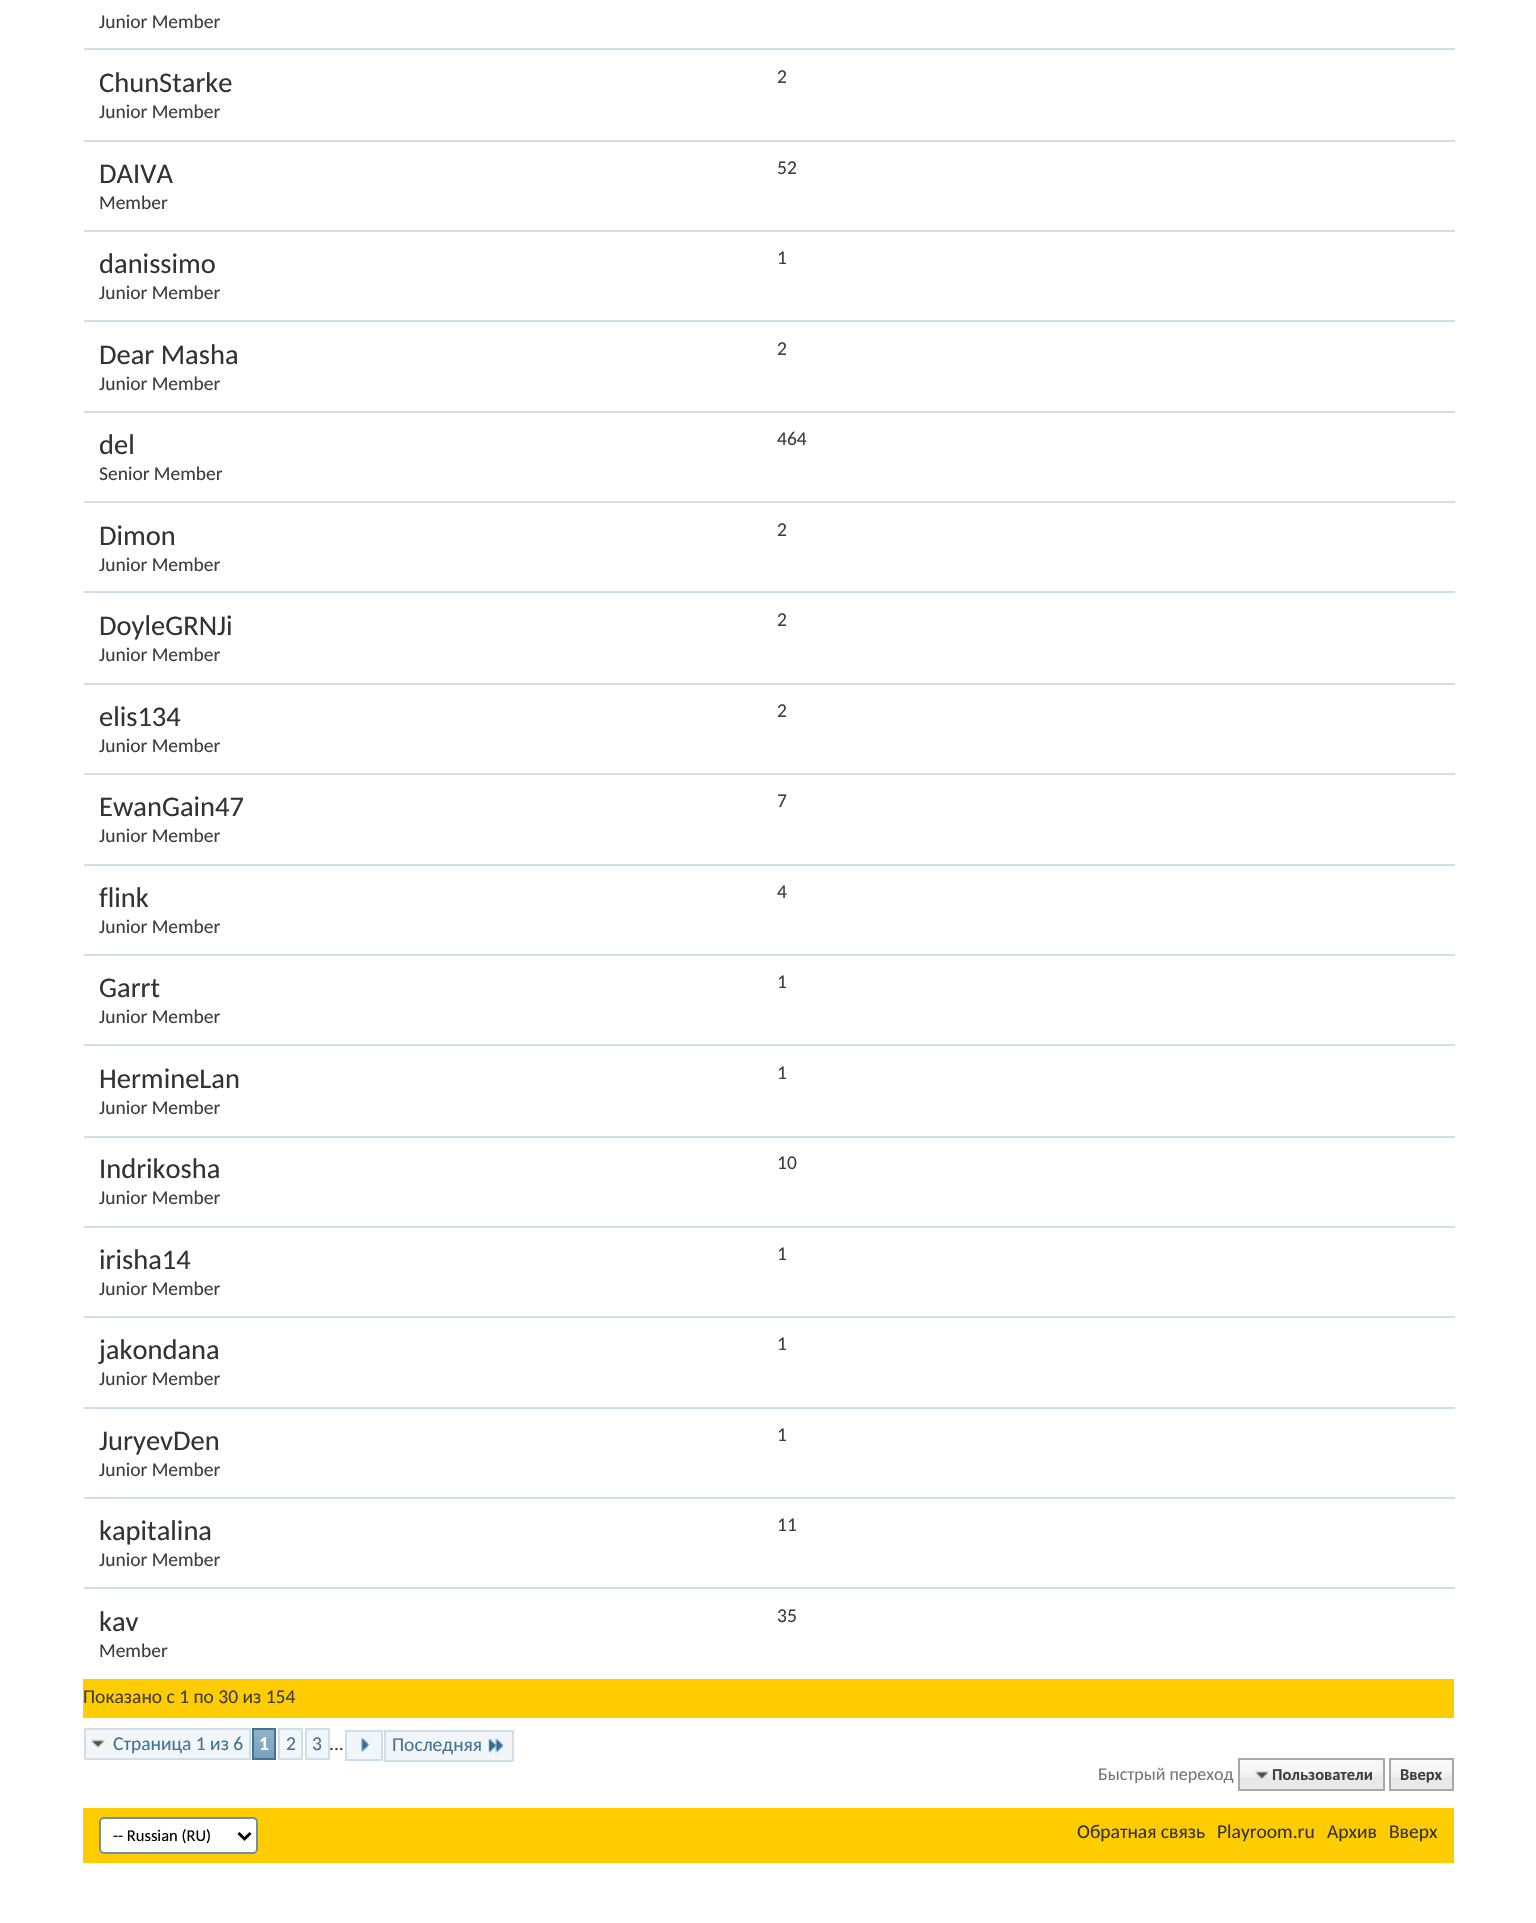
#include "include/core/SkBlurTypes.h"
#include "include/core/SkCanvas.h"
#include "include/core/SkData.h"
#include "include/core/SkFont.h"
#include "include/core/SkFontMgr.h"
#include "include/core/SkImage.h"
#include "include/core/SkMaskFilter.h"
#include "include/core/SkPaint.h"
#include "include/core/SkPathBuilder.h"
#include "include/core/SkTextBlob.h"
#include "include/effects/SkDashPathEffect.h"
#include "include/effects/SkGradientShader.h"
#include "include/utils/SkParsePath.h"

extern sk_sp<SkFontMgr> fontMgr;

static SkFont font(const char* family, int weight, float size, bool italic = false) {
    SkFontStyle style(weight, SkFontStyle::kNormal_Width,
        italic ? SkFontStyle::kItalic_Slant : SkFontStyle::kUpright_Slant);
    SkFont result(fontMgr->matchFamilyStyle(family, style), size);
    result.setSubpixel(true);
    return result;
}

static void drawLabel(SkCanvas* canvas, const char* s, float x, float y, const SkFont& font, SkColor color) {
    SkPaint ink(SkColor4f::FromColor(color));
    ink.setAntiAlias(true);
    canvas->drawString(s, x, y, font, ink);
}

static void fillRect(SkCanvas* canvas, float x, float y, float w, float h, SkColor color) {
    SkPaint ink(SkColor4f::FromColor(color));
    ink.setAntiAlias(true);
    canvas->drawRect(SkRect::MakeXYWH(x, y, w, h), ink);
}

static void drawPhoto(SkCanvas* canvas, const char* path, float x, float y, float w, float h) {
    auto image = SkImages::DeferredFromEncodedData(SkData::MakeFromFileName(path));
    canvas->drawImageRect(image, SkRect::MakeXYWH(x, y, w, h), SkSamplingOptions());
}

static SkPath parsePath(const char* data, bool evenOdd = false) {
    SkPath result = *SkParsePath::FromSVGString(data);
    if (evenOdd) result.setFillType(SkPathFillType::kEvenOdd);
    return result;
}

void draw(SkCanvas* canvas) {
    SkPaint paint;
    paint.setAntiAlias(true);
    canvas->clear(0xFFFFFFFF);
    SkFont font1 = font("Carlito", 400, 19.5f);
    drawLabel(canvas, "Junior Member", 99, 28, font1, 0xFF3E3E3E);
    fillRect(canvas, 84, 48, 1371, 2, 0xFFCEDFEB);
    SkFont font2 = font("Carlito", 400, 28.5f);
    drawLabel(canvas, "ChunStarke", 99, 92, font2, 0xFF333333);
    drawLabel(canvas, "Junior Member", 99, 118, font1, 0xFF3E3E3E);
    drawLabel(canvas, "2", 777, 83, font1, 0xFF3E3E3E);
    fillRect(canvas, 84, 140, 1371, 2, 0xFFCEDFEB);
    drawLabel(canvas, "DAIVA", 99, 183, font2, 0xFF333333);
    drawLabel(canvas, "Member", 99, 209, font1, 0xFF3E3E3E);
    drawLabel(canvas, "52", 777, 174, font1, 0xFF3E3E3E);
    fillRect(canvas, 84, 230, 1371, 2, 0xFFCEDFEB);
    drawLabel(canvas, "danissimo", 99, 273, font2, 0xFF333333);
    drawLabel(canvas, "Junior Member", 99, 299, font1, 0xFF3E3E3E);
    drawLabel(canvas, "1", 777, 264, font1, 0xFF3E3E3E);
    fillRect(canvas, 84, 320, 1371, 2, 0xFFCEDFEB);
    drawLabel(canvas, "Dear Masha", 99, 364, font2, 0xFF333333);
    drawLabel(canvas, "Junior Member", 99, 390, font1, 0xFF3E3E3E);
    drawLabel(canvas, "2", 777, 355, font1, 0xFF3E3E3E);
    fillRect(canvas, 84, 411, 1371, 2, 0xFFCEDFEB);
    drawLabel(canvas, "del", 99, 454, font2, 0xFF333333);
    drawLabel(canvas, "Senior Member", 99, 480, font1, 0xFF3E3E3E);
    drawLabel(canvas, "464", 777, 445, font1, 0xFF3E3E3E);
    fillRect(canvas, 84, 501, 1371, 2, 0xFFCEDFEB);
    drawLabel(canvas, "Dimon", 99, 545, font2, 0xFF333333);
    drawLabel(canvas, "Junior Member", 99, 571, font1, 0xFF3E3E3E);
    drawLabel(canvas, "2", 777, 536, font1, 0xFF3E3E3E);
    fillRect(canvas, 84, 591, 1371, 2, 0xFFCEDFEB);
    drawLabel(canvas, "DoyleGRNJi", 99, 635, font2, 0xFF333333);
    drawLabel(canvas, "Junior Member", 99, 661, font1, 0xFF3E3E3E);
    drawLabel(canvas, "2", 777, 626, font1, 0xFF3E3E3E);
    fillRect(canvas, 84, 683, 1371, 2, 0xFFCEDFEB);
    drawLabel(canvas, "elis134", 99, 726, font2, 0xFF333333);
    drawLabel(canvas, "Junior Member", 99, 752, font1, 0xFF3E3E3E);
    drawLabel(canvas, "2", 777, 717, font1, 0xFF3E3E3E);
    fillRect(canvas, 84, 773, 1371, 2, 0xFFCEDFEB);
    drawLabel(canvas, "EwanGain47", 99, 816, font2, 0xFF333333);
    drawLabel(canvas, "Junior Member", 99, 842, font1, 0xFF3E3E3E);
    drawLabel(canvas, "7", 777, 807, font1, 0xFF3E3E3E);
    fillRect(canvas, 84, 864, 1371, 2, 0xFFCEDFEB);
    drawLabel(canvas, "flink", 99, 907, font2, 0xFF333333);
    drawLabel(canvas, "Junior Member", 99, 933, font1, 0xFF3E3E3E);
    drawLabel(canvas, "4", 777, 898, font1, 0xFF3E3E3E);
    fillRect(canvas, 84, 954, 1371, 2, 0xFFCEDFEB);
    drawLabel(canvas, "Garrt", 99, 997, font2, 0xFF333333);
    drawLabel(canvas, "Junior Member", 99, 1023, font1, 0xFF3E3E3E);
    drawLabel(canvas, "1", 777, 988, font1, 0xFF3E3E3E);
    fillRect(canvas, 84, 1044, 1371, 2, 0xFFCEDFEB);
    drawLabel(canvas, "HermineLan", 99, 1088, font2, 0xFF333333);
    drawLabel(canvas, "Junior Member", 99, 1114, font1, 0xFF3E3E3E);
    drawLabel(canvas, "1", 777, 1079, font1, 0xFF3E3E3E);
    fillRect(canvas, 84, 1136, 1371, 2, 0xFFCEDFEB);
    drawLabel(canvas, "Indrikosha", 99, 1178, font2, 0xFF333333);
    drawLabel(canvas, "Junior Member", 99, 1204, font1, 0xFF3E3E3E);
    drawLabel(canvas, "10", 777, 1169, font1, 0xFF3E3E3E);
    fillRect(canvas, 84, 1226, 1371, 2, 0xFFCEDFEB);
    drawLabel(canvas, "irisha14", 99, 1269, font2, 0xFF333333);
    drawLabel(canvas, "Junior Member", 99, 1295, font1, 0xFF3E3E3E);
    drawLabel(canvas, "1", 777, 1260, font1, 0xFF3E3E3E);
    fillRect(canvas, 84, 1316, 1371, 2, 0xFFCEDFEB);
    drawLabel(canvas, "jakondana", 99, 1359, font2, 0xFF333333);
    drawLabel(canvas, "Junior Member", 99, 1385, font1, 0xFF3E3E3E);
    drawLabel(canvas, "1", 777, 1350, font1, 0xFF3E3E3E);
    fillRect(canvas, 84, 1407, 1371, 2, 0xFFCEDFEB);
    drawLabel(canvas, "JuryevDen", 99, 1450, font2, 0xFF333333);
    drawLabel(canvas, "Junior Member", 99, 1476, font1, 0xFF3E3E3E);
    drawLabel(canvas, "1", 777, 1441, font1, 0xFF3E3E3E);
    fillRect(canvas, 84, 1497, 1371, 2, 0xFFCEDFEB);
    drawLabel(canvas, "kapitalina", 99, 1540, font2, 0xFF333333);
    drawLabel(canvas, "Junior Member", 99, 1566, font1, 0xFF3E3E3E);
    drawLabel(canvas, "11", 777, 1531, font1, 0xFF3E3E3E);
    fillRect(canvas, 84, 1587, 1371, 2, 0xFFCEDFEB);
    drawLabel(canvas, "kav", 99, 1631, font2, 0xFF333333);
    drawLabel(canvas, "Member", 99, 1657, font1, 0xFF3E3E3E);
    drawLabel(canvas, "35", 777, 1622, font1, 0xFF3E3E3E);
    fillRect(canvas, 83, 1679, 1371, 39, 0xFFFFCC00);
    drawLabel(canvas, "Показано с 1 по 30 из 154", 83, 1703, font1, 0xFF3E3E3E);
    fillRect(canvas, 86, 1730, 163, 28, 0xFFF2F6F8);
    drawPhoto(canvas, "assets/img1.png", 91, 1739, 14, 9);
    paint.setStroke(true);
    paint.setStrokeWidth(2);
    paint.setColor(0xFFCEDFEB);
    canvas->drawRect(SkRect::MakeXYWH(85, 1729, 165, 30), paint);
    drawLabel(canvas, "Страница 1 из 6", 113, 1750, font1, 0xFF417394);
    fillRect(canvas, 254, 1730, 20, 28, 0xFF759FBB);
    drawPhoto(canvas, "assets/img2.png", 254, 1730, 20, 28);
    paint.setColor(0xFF417394);
    canvas->drawRect(SkRect::MakeXYWH(253, 1729, 22, 30), paint);
    SkFont font3 = font("Carlito", 700, 19.5f);
    drawLabel(canvas, "1", 259, 1750, font3, 0xFFFFFFFF);
    paint.setStroke(false);
    paint.setColor(0xFFF2F6F8);
    canvas->drawRect(SkRect::MakeXYWH(279, 1729, 23, 30), paint);
    paint.setStroke(true);
    paint.setColor(0xFFCEDFEB);
    canvas->drawRect(SkRect::MakeXYWH(279, 1729, 23, 30), paint);
    drawLabel(canvas, "2", 286, 1750, font1, 0xFF417394);
    paint.setStroke(false);
    paint.setColor(0xFFF2F6F8);
    canvas->drawRect(SkRect::MakeXYWH(306, 1729, 23, 30), paint);
    paint.setStroke(true);
    paint.setColor(0xFFCEDFEB);
    canvas->drawRect(SkRect::MakeXYWH(306, 1729, 23, 30), paint);
    drawLabel(canvas, "3", 312, 1750, font1, 0xFF417394);
    drawLabel(canvas, "...", 329, 1750, font1, 0xFF3E3E3E);
    paint.setStroke(false);
    paint.setColor(0xFFF2F6F8);
    canvas->drawRect(SkRect::MakeXYWH(346, 1731, 36, 29), paint);
    paint.setStroke(true);
    paint.setColor(0xFFCEDFEB);
    canvas->drawRect(SkRect::MakeXYWH(346, 1731, 36, 29), paint);
    drawPhoto(canvas, "assets/img3.png", 361, 1737, 9, 15);
    fillRect(canvas, 386, 1732, 126, 28, 0xFFF2F6F8);
    drawLabel(canvas, "Последняя", 392, 1751, font1, 0xFF417394);
    fillRect(canvas, 384, 1730, 129, 2, 0xFFCEDFEB);
    fillRect(canvas, 384, 1760, 99, 2, 0xFFCEDFEB);
    fillRect(canvas, 384, 1730, 2, 31, 0xFFCEDFEB);
    fillRect(canvas, 512, 1730, 2, 31, 0xFFCEDFEB);
    fillRect(canvas, 483, 1760, 30, 2, 0xFFCEDFEB);
    drawPhoto(canvas, "assets/img4.png", 488, 1738, 16, 16);
    SkFont font4 = font("Carlito", 400, 18);
    drawLabel(canvas, "Быстрый переход", 1098, 1780, font4, 0xFF777777);
    fillRect(canvas, 1240, 1760, 143, 29, 0xFFE9E9E9);
    drawPhoto(canvas, "assets/img5.png", 1240, 1760, 143, 17);
    fillRect(canvas, 1391, 1760, 61, 29, 0xFFE9E9E9);
    drawPhoto(canvas, "assets/img6.png", 1391, 1760, 61, 17);
    paint.setColor(0xFFA8A8A8);
    canvas->drawRect(SkRect::MakeXYWH(1239, 1759, 145, 31), paint);
    drawPhoto(canvas, "assets/img7.png", 1255, 1770, 14, 10);
    SkFont font5 = font("Carlito", 700, 16.5f);
    drawLabel(canvas, "Пользователи", 1272, 1780, font5, 0xFF3E3E3E);
    canvas->drawRect(SkRect::MakeXYWH(1390, 1759, 63, 31), paint);
    drawLabel(canvas, "Вверх", 1400, 1780, font5, 0xFF3E3E3E);
    fillRect(canvas, 83, 1808, 1371, 55, 0xFFFFCC00);
    paint.setStroke(false);
    paint.setColor(0xFFFFFFFF);
    canvas->drawRoundRect(SkRect::MakeXYWH(100, 1818, 157, 35), 4, 4, paint);
    paint.setStroke(true);
    paint.setColor(0xFF6B91AB);
    canvas->drawRoundRect(SkRect::MakeXYWH(100, 1818, 157, 35), 4, 4, paint);
    paint.setStrokeWidth(3);
    paint.setColor(0xFF000000);
    canvas->drawPath(parsePath("M238.5 1833L244.5 1839L250.5 1833"), paint);
    SkFont font6 = font("Carlito", 400, 16.5f);
    drawLabel(canvas, "-- Russian (RU)", 113, 1841, font6, 0xFF000000);
    drawLabel(canvas, "Обратная связь", 1077, 1838, font1, 0xFF333333);
    drawLabel(canvas, "Playroom.ru", 1217, 1838, font1, 0xFF333333);
    drawLabel(canvas, "Архив", 1327, 1838, font1, 0xFF333333);
    drawLabel(canvas, "Вверх", 1389, 1838, font1, 0xFF333333);
}
